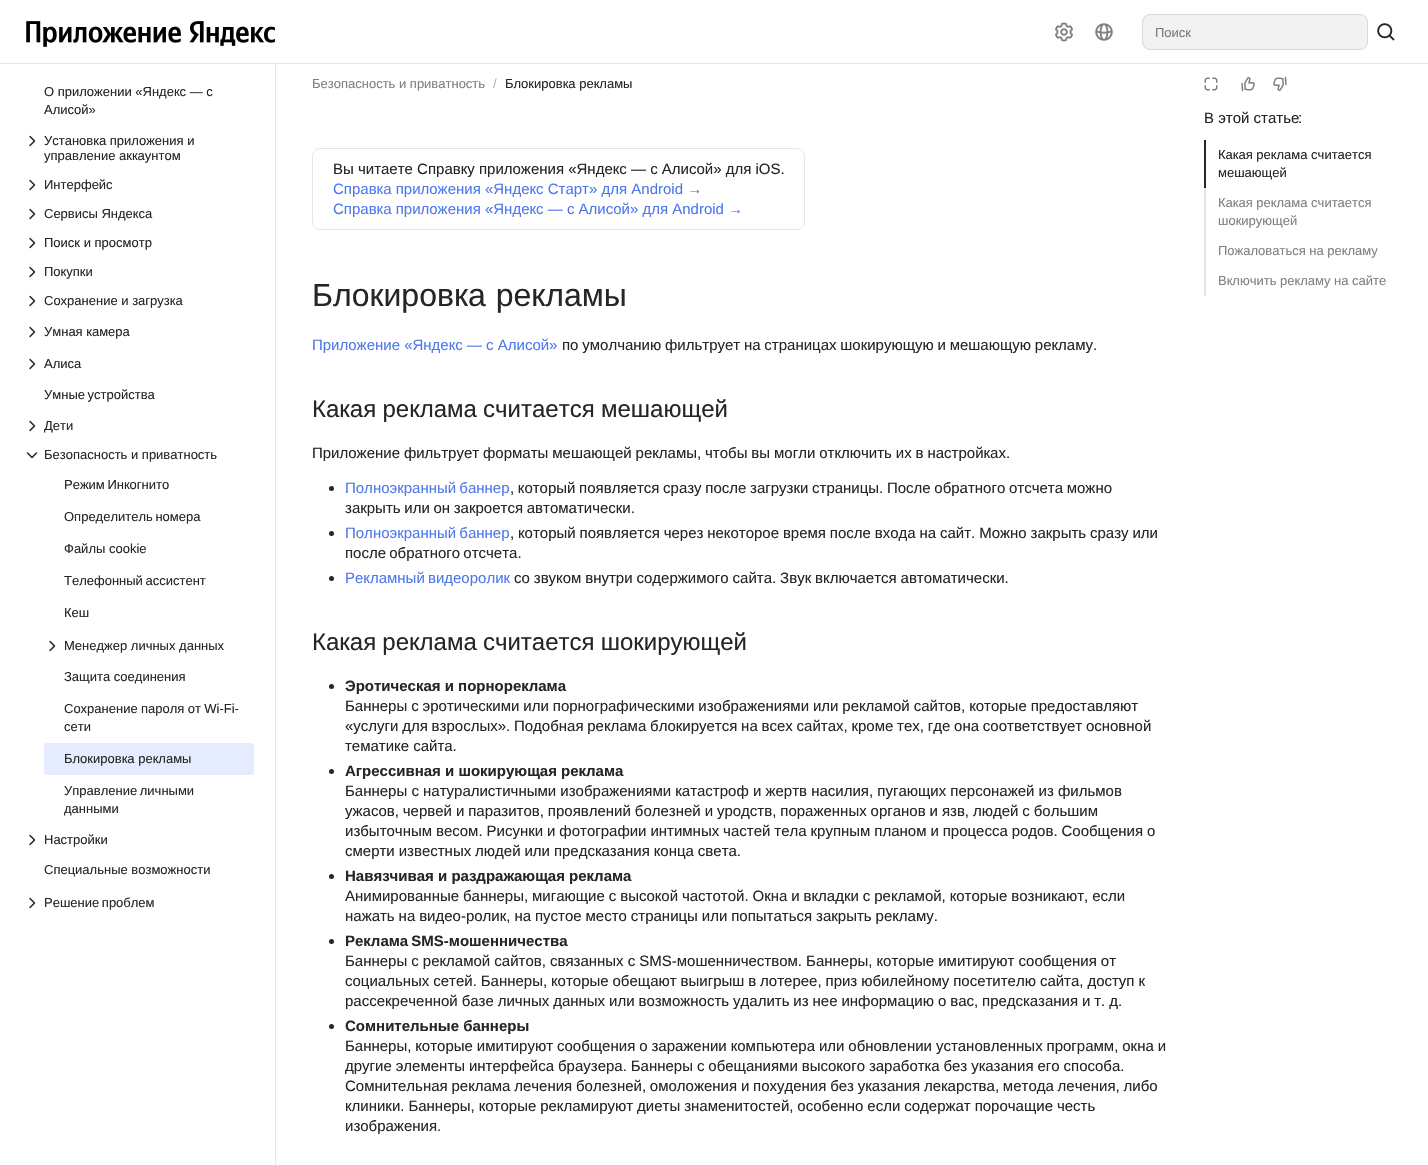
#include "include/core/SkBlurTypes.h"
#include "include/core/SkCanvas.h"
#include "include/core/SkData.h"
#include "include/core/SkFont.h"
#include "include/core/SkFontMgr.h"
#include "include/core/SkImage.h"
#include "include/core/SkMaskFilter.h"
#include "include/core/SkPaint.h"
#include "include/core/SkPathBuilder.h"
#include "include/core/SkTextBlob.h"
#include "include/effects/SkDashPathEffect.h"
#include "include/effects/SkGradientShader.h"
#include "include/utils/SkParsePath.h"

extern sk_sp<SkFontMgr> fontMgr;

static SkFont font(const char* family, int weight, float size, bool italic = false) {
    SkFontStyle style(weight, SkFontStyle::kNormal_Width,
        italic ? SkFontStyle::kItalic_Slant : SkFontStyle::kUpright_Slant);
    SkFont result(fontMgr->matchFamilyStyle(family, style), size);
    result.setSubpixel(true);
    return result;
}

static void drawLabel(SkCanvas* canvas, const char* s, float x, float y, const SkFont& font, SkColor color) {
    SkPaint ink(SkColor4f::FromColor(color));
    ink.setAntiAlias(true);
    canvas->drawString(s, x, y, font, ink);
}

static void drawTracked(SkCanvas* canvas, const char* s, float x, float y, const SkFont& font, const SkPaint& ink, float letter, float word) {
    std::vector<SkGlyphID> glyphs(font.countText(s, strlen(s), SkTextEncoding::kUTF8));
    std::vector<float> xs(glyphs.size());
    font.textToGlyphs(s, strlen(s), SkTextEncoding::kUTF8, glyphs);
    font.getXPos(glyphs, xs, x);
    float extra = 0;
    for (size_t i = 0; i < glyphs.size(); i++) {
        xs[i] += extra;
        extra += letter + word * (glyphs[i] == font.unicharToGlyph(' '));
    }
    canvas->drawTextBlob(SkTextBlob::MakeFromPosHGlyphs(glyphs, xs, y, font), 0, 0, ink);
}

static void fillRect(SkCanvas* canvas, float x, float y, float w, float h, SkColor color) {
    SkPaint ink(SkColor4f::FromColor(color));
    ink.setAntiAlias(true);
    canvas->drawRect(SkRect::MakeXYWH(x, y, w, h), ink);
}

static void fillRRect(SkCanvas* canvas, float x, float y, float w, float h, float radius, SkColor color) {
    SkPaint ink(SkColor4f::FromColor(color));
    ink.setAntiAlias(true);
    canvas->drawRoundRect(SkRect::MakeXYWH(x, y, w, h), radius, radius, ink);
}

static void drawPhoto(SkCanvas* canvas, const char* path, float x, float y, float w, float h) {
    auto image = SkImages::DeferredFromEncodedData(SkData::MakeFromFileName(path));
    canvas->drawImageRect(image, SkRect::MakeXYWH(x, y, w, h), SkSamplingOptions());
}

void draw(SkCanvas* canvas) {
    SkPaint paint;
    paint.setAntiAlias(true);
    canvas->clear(0xFFFFFFFF);
    fillRect(canvas, 0, 63, 1428, 1, 0xFFE6E6E6);
    drawPhoto(canvas, "assets/img1.png", 26, 21, 249, 26);
    drawPhoto(canvas, "assets/img2.png", 1055, 22, 18, 20);
    drawPhoto(canvas, "assets/img3.png", 1095, 23, 18, 18);
    fillRRect(canvas, 1142, 14, 226, 36, 8, 0xFFF2F2F2);
    paint.setStroke(true);
    paint.setStrokeWidth(1);
    paint.setColor(0x1A000000);
    canvas->drawRoundRect(SkRect::MakeXYWH(1142.5f, 14.5f, 225, 35), 7.5f, 7.5f, paint);
    SkFont font1 = font("Liberation Sans", 400, 13);
    drawLabel(canvas, "Поиск", 1155, 37, font1, 0xFF797979);
    drawPhoto(canvas, "assets/img4.png", 1377, 23, 18, 18);
    fillRect(canvas, 275, 64, 1, 1101, 0xFFE6E6E6);
    drawLabel(canvas, "О приложении «Яндекс — с", 44, 96, font1, 0xFF262626);
    drawLabel(canvas, "Алисой»", 44, 114, font1, 0xFF262626);
    drawPhoto(canvas, "assets/img5.png", 29, 135, 7, 12);
    drawLabel(canvas, "Установка приложения и", 44, 145, font1, 0xFF262626);
    drawLabel(canvas, "управление аккаунтом", 44, 160, font1, 0xFF262626);
    drawPhoto(canvas, "assets/img5.png", 29, 179, 7, 12);
    drawLabel(canvas, "Интерфейс", 44, 189, font1, 0xFF262626);
    drawPhoto(canvas, "assets/img5.png", 29, 208, 7, 12);
    drawLabel(canvas, "Сервисы Яндекса", 44, 218, font1, 0xFF262626);
    drawPhoto(canvas, "assets/img5.png", 29, 237, 7, 12);
    drawLabel(canvas, "Поиск и просмотр", 44, 247, font1, 0xFF262626);
    drawPhoto(canvas, "assets/img5.png", 29, 266, 7, 12);
    drawLabel(canvas, "Покупки", 44, 276, font1, 0xFF262626);
    drawPhoto(canvas, "assets/img5.png", 29, 295, 7, 12);
    drawLabel(canvas, "Сохранение и загрузка", 44, 305, font1, 0xFF262626);
    drawPhoto(canvas, "assets/img5.png", 29, 326, 7, 12);
    drawLabel(canvas, "Умная камера", 44, 336, font1, 0xFF262626);
    drawPhoto(canvas, "assets/img5.png", 29, 358, 7, 12);
    drawLabel(canvas, "Алиса", 44, 368, font1, 0xFF262626);
    paint.setStroke(false);
    paint.setColor(0xFF262626);
    drawTracked(canvas, "Умные устройства", 44, 399, font1, paint, 0, -1);
    drawPhoto(canvas, "assets/img5.png", 29, 420, 7, 12);
    drawLabel(canvas, "Дети", 44, 430, font1, 0xFF262626);
    drawPhoto(canvas, "assets/img6.png", 26, 452, 12, 7);
    drawLabel(canvas, "Безопасность и приватность", 44, 459, font1, 0xFF262626);
    drawTracked(canvas, "Режим Инкогнито", 64, 489, font1, paint, 0, -1);
    drawTracked(canvas, "Определитель номера", 64, 521, font1, paint, 0, -1);
    drawLabel(canvas, "Файлы cookie", 64, 553, font1, 0xFF262626);
    drawTracked(canvas, "Телефонный ассистент", 64, 585, font1, paint, 0, -1);
    drawLabel(canvas, "Кеш", 64, 617, font1, 0xFF262626);
    drawPhoto(canvas, "assets/img5.png", 49, 640, 7, 12);
    drawLabel(canvas, "Менеджер личных данных", 64, 650, font1, 0xFF262626);
    drawLabel(canvas, "Защита соединения", 64, 681, font1, 0xFF262626);
    drawTracked(canvas, "Сохранение пароля от Wi-Fi-", 64, 713, font1, paint, 0, -0.25f);
    drawLabel(canvas, "сети", 64, 731, font1, 0xFF262626);
    fillRRect(canvas, 44, 743, 210, 32, 3, 0xFFE5ECFF);
    drawLabel(canvas, "Блокировка рекламы", 64, 763, font1, 0xFF262626);
    drawTracked(canvas, "Управление личными", 64, 795, font1, paint, 0, -1);
    drawLabel(canvas, "данными", 64, 813, font1, 0xFF262626);
    drawPhoto(canvas, "assets/img5.png", 29, 834, 7, 12);
    drawLabel(canvas, "Настройки", 44, 844, font1, 0xFF262626);
    drawLabel(canvas, "Специальные возможности", 44, 874, font1, 0xFF262626);
    drawPhoto(canvas, "assets/img5.png", 29, 897, 7, 12);
    drawTracked(canvas, "Решение проблем", 44, 907, font1, paint, 0, -1);
    drawLabel(canvas, "Безопасность и приватность", 312, 88, font1, 0xFF808080);
    drawLabel(canvas, "/", 493, 88, font1, 0xFFB3B3B3);
    drawLabel(canvas, "Блокировка рекламы", 505, 88, font1, 0xFF262626);
    drawPhoto(canvas, "assets/img7.png", 1204, 77, 14, 14);
    drawPhoto(canvas, "assets/img8.png", 1241, 77, 14, 15);
    drawPhoto(canvas, "assets/img9.png", 1273, 76, 14, 15);
    paint.setStroke(true);
    paint.setColor(0xFFE6E6E6);
    canvas->drawRoundRect(SkRect::MakeXYWH(312.5f, 148.5f, 492, 81), 7.5f, 7.5f, paint);
    SkFont font2 = font("Liberation Sans", 400, 15);
    drawLabel(canvas, "Вы читаете Справку приложения «Яндекс — с Алисой» для iOS.", 333, 174, font2, 0xFF262626);
    drawLabel(canvas, "Справка приложения «Яндекс Старт» для Android →", 333, 194, font2, 0xFF4E79EB);
    drawLabel(canvas, "Справка приложения «Яндекс — с Алисой» для Android →", 333, 214, font2, 0xFF4E79EB);
    SkFont font3 = font("Liberation Sans", 400, 32);
    paint.setStroke(false);
    paint.setColor(0xFF262626);
    drawTracked(canvas, "Блокировка рекламы", 312, 306, font3, paint, 0, 1);
    drawLabel(canvas, "Приложение «Яндекс — с Алисой»", 312, 350, font2, 0xFF4E79EB);
    drawTracked(canvas, "по умолчанию фильтрует на страницах шокирующую и мешающую рекламу.", 562, 350, font2, paint, 0, -0.4f);
    SkFont font4 = font("Liberation Sans", 400, 24);
    drawTracked(canvas, "Какая реклама считается мешающей", 312, 417, font4, paint, 0, -0.4f);
    drawTracked(canvas, "Приложение фильтрует форматы мешающей рекламы, чтобы вы могли отключить их в настройках.", 312, 458, font2, paint, 0, -0.25f);
    canvas->drawCircle(331.5f, 488.5f, 2.5f, paint);
    paint.setColor(0xFF4E79EB);
    drawTracked(canvas, "Полноэкранный баннер", 345, 493, font2, paint, 0, -1);
    paint.setColor(0xFF262626);
    drawTracked(canvas, ", который появляется сразу после загрузки страницы. После обратного отсчета можно", 510, 493, font2, paint, 0, -0.5f);
    drawTracked(canvas, "закрыть или он закроется автоматически.", 345, 513, font2, paint, 0, -0.5f);
    canvas->drawCircle(331.5f, 533.5f, 2.5f, paint);
    paint.setColor(0xFF4E79EB);
    drawTracked(canvas, "Полноэкранный баннер", 345, 538, font2, paint, 0, -1);
    paint.setColor(0xFF262626);
    drawTracked(canvas, ", который появляется через некоторое время после входа на сайт. Можно закрыть сразу или", 510, 538, font2, paint, 0, -0.3f);
    drawTracked(canvas, "после обратного отсчета.", 345, 558, font2, paint, 0, -1);
    canvas->drawCircle(331.5f, 578.5f, 2.5f, paint);
    paint.setColor(0xFF4E79EB);
    drawTracked(canvas, "Рекламный видеоролик", 345, 583, font2, paint, 0, -1);
    paint.setColor(0xFF262626);
    drawTracked(canvas, "со звуком внутри содержимого сайта. Звук включается автоматически.", 514, 583, font2, paint, 0, -0.25f);
    drawTracked(canvas, "Какая реклама считается шокирующей", 312, 650, font4, paint, 0, -0.5f);
    canvas->drawCircle(331.5f, 686.5f, 2.5f, paint);
    SkFont font5 = font("Liberation Sans", 700, 15);
    drawLabel(canvas, "Эротическая и порнореклама", 345, 691, font5, 0xFF262626);
    drawTracked(canvas, "Баннеры с эротическими или порнографическими изображениями или рекламой сайтов, которые предоставляют", 345, 711, font2, paint, 0, -0.25f);
    drawTracked(canvas, "«услуги для взрослых». Подобная реклама блокируется на всех сайтах, кроме тех, где она соответствует основной", 345, 731, font2, paint, 0, -0.4f);
    drawLabel(canvas, "тематике сайта.", 345, 751, font2, 0xFF262626);
    canvas->drawCircle(331.5f, 771.5f, 2.5f, paint);
    drawLabel(canvas, "Агрессивная и шокирующая реклама", 345, 776, font5, 0xFF262626);
    drawLabel(canvas, "Баннеры с натуралистичными изображениями катастроф и жертв насилия, пугающих персонажей из фильмов", 345, 796, font2, 0xFF262626);
    drawTracked(canvas, "ужасов, червей и паразитов, проявлений болезней и уродств, пораженных органов и язв, людей с большим", 345, 816, font2, paint, 0, -0.25f);
    drawTracked(canvas, "избыточным весом. Рисунки и фотографии интимных частей тела крупным планом и процесса родов. Сообщения о", 345, 836, font2, paint, 0, -0.25f);
    drawTracked(canvas, "смерти известных людей или предсказания конца света.", 345, 856, font2, paint, 0, -0.25f);
    canvas->drawCircle(331.5f, 876.5f, 2.5f, paint);
    drawLabel(canvas, "Навязчивая и раздражающая реклама", 345, 881, font5, 0xFF262626);
    drawTracked(canvas, "Анимированные баннеры, мигающие с высокой частотой. Окна и вкладки с рекламой, которые возникают, если", 345, 901, font2, paint, 0, -0.25f);
    drawTracked(canvas, "нажать на видео-ролик, на пустое место страницы или попытаться закрыть рекламу.", 345, 921, font2, paint, 0, -0.25f);
    canvas->drawCircle(331.5f, 941.5f, 2.5f, paint);
    drawTracked(canvas, "Реклама SMS-мошенничества", 345, 946, font5, paint, 0, -1);
    drawTracked(canvas, "Баннеры с рекламой сайтов, связанных с SMS-мошенничеством. Баннеры, которые имитируют сообщения от", 345, 966, font2, paint, 0, -0.1f);
    drawTracked(canvas, "социальных сетей. Баннеры, которые обещают выигрыш в лотерее, приз юбилейному посетителю сайта, доступ к", 345, 986, font2, paint, 0, -0.25f);
    drawTracked(canvas, "рассекреченной базе личных данных или возможность удалить из нее информацию о вас, предсказания и т. д.", 345, 1006, font2, paint, 0, -0.25f);
    canvas->drawCircle(331.5f, 1026.5f, 2.5f, paint);
    drawLabel(canvas, "Сомнительные баннеры", 345, 1031, font5, 0xFF262626);
    drawTracked(canvas, "Баннеры, которые имитируют сообщения о заражении компьютера или обновлении установленных программ, окна и", 345, 1051, font2, paint, 0, -0.25f);
    drawTracked(canvas, "другие элементы интерфейса браузера. Баннеры с обещаниями высокого заработка без указания его способа.", 345, 1071, font2, paint, 0, -0.25f);
    drawTracked(canvas, "Сомнительная реклама лечения болезней, омоложения и похудения без указания лекарства, метода лечения, либо", 345, 1091, font2, paint, 0, -0.4f);
    drawTracked(canvas, "клиники. Баннеры, которые рекламируют диеты знаменитостей, особенно если содержат порочащие честь", 345, 1111, font2, paint, 0, -0.25f);
    drawLabel(canvas, "изображения.", 345, 1131, font2, 0xFF262626);
    drawLabel(canvas, "В этой статье", 1204, 123, font2, 0xFF262626);
    drawLabel(canvas, ":", 1298, 123, font2, 0xFF262626);
    fillRect(canvas, 1204, 140, 2, 48, 0xFF262626);
    drawLabel(canvas, "Какая реклама считается", 1218, 159, font1, 0xFF262626);
    drawLabel(canvas, "мешающей", 1218, 177, font1, 0xFF262626);
    fillRect(canvas, 1204, 188, 2, 108, 0xFFE6E6E6);
    drawLabel(canvas, "Какая реклама считается", 1218, 207, font1, 0xFF808080);
    drawLabel(canvas, "шокирующей", 1218, 225, font1, 0xFF808080);
    drawLabel(canvas, "Пожаловаться на рекламу", 1218, 255, font1, 0xFF808080);
    drawLabel(canvas, "Включить рекламу на сайте", 1218, 285, font1, 0xFF808080);
}
